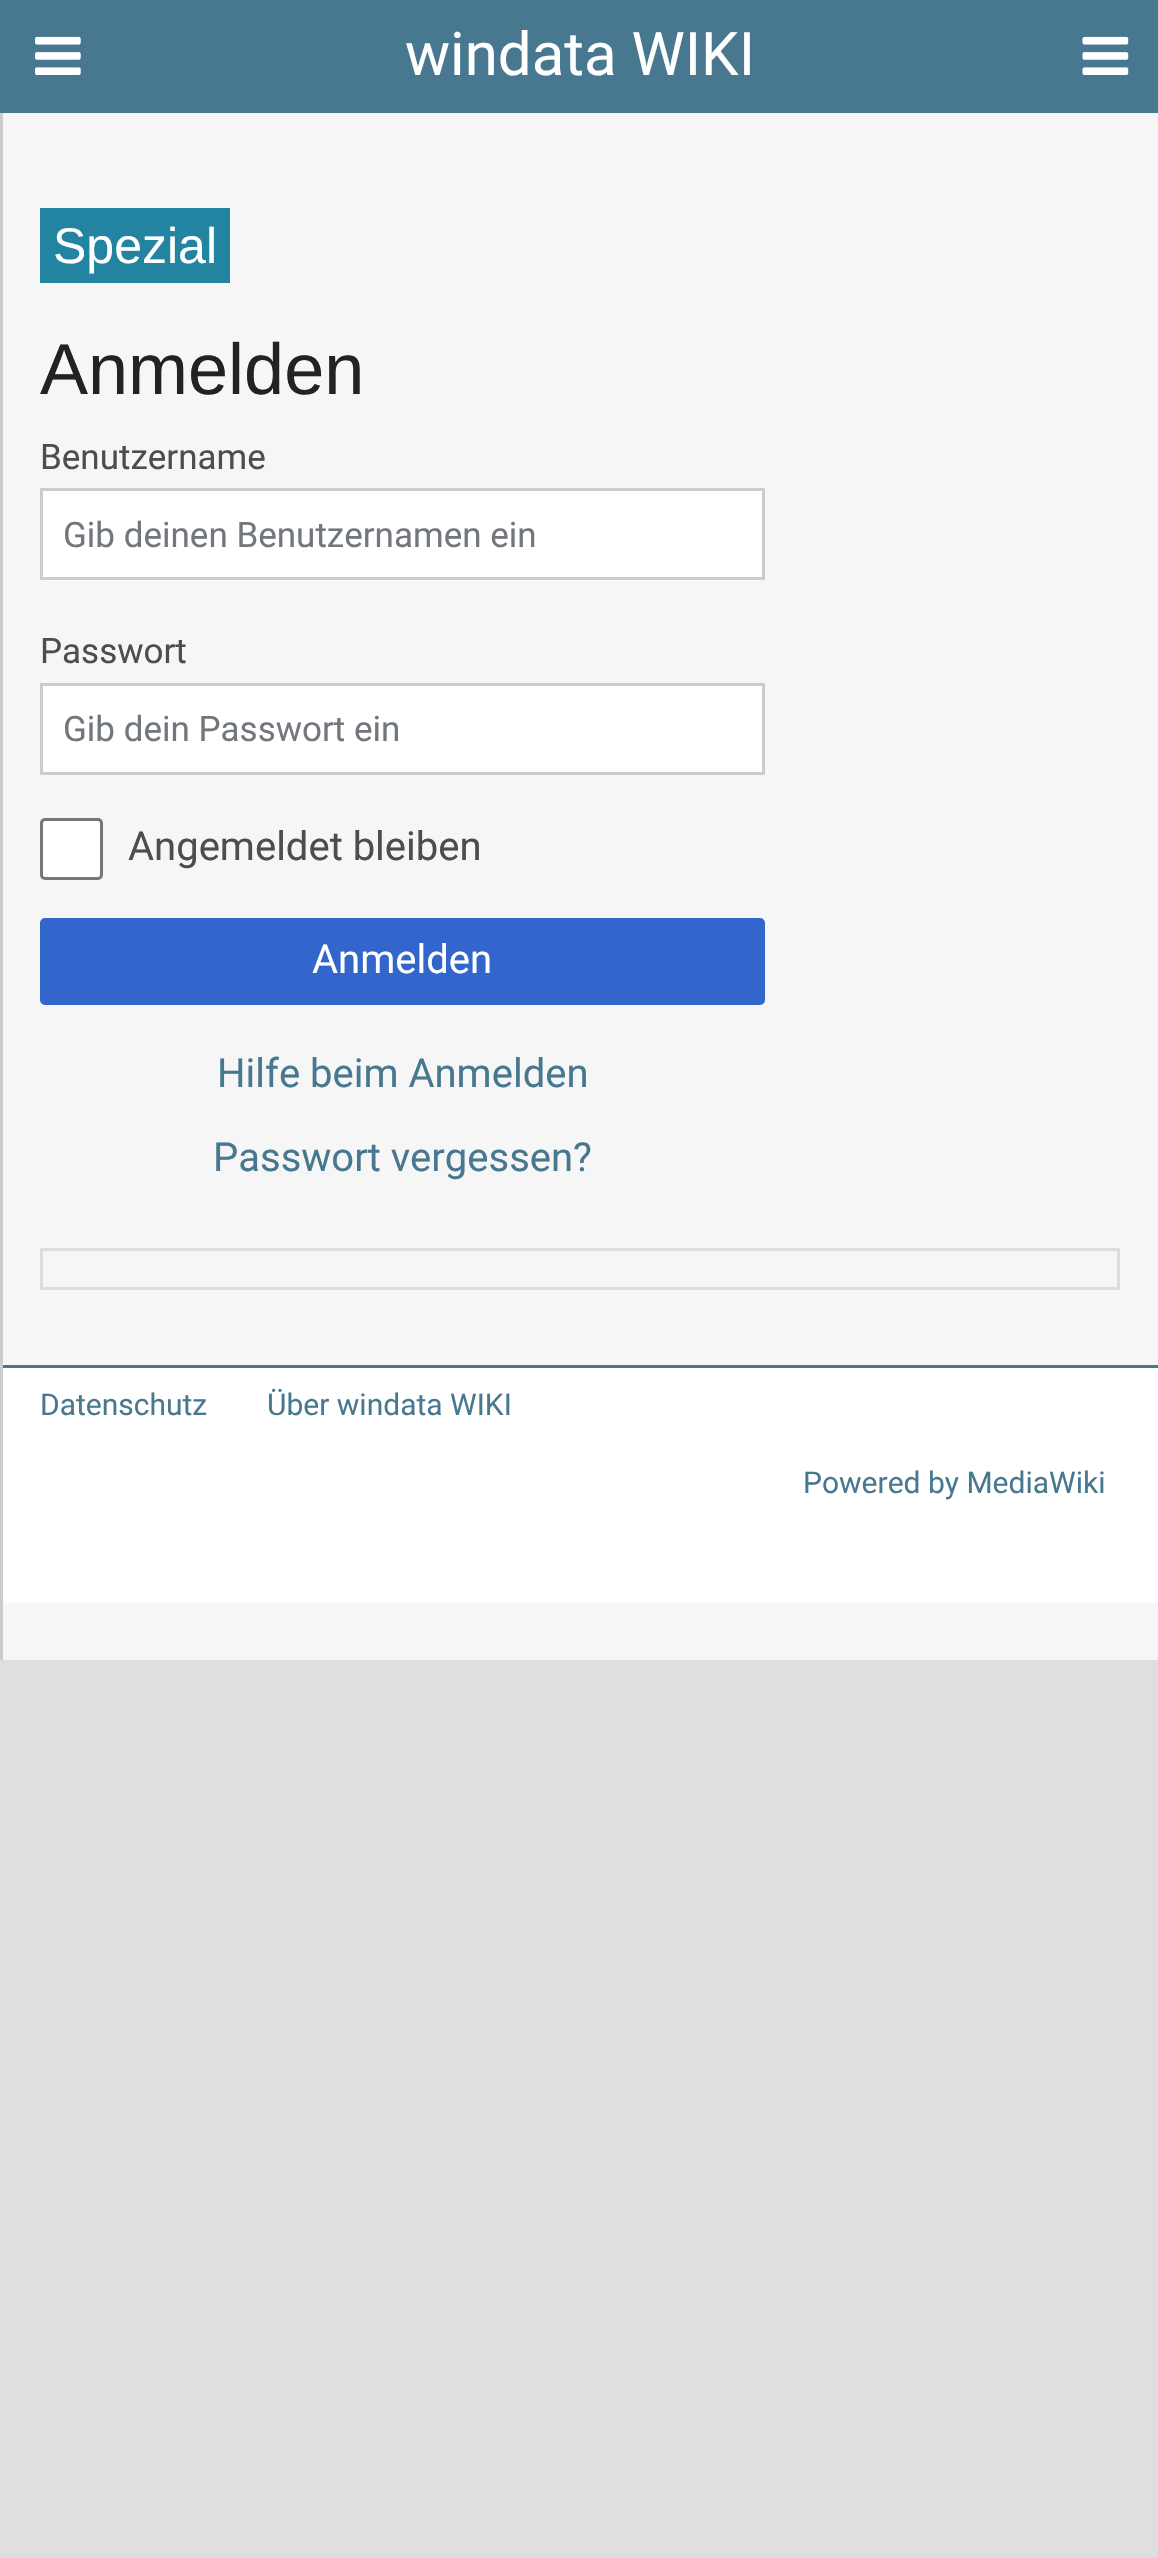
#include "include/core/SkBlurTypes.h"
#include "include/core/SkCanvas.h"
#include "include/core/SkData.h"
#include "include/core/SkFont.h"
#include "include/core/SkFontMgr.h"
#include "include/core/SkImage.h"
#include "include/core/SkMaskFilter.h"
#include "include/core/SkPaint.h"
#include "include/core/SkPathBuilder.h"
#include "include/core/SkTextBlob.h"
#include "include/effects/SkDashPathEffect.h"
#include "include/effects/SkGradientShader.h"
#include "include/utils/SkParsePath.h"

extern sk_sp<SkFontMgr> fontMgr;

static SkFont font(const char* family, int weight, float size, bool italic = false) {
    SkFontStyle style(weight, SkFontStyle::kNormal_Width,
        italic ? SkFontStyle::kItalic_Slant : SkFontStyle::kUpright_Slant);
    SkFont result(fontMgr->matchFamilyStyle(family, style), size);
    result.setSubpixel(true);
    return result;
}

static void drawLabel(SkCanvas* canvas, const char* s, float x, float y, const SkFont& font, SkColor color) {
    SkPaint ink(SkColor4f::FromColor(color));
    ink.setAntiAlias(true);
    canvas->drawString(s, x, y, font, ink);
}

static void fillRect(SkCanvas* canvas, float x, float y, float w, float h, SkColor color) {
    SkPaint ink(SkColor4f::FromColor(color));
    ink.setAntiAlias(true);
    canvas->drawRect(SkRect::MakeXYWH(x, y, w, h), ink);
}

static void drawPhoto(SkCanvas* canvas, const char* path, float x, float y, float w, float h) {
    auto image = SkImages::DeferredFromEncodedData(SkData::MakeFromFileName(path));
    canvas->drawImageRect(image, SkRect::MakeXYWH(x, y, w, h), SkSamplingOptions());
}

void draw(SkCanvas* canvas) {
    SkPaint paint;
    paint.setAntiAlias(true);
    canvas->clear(0xFFDFDFDF);
    fillRect(canvas, 0, 0, 1158, 113, 0xFF48788F);
    drawPhoto(canvas, "assets/img1.png", 35, 36, 46, 39);
    SkFont font1 = font("Roboto", 400, 60);
    drawLabel(canvas, "windata WIKI", 405, 75, font1, 0xFFFFFFFF);
    drawPhoto(canvas, "assets/img2.png", 1082, 36, 47, 39);
    fillRect(canvas, 3, 113, 1155, 1547, 0xFFF6F6F6);
    fillRect(canvas, 0, 113, 3, 1547, 0xFFCCCCCC);
    fillRect(canvas, 40, 208, 190, 75, 0xFF2284A1);
    SkFont font2 = font("Liberation Sans", 400, 50);
    drawLabel(canvas, "Spezial", 53, 263, font2, 0xFFFFFFFF);
    SkFont font3 = font("Liberation Sans", 400, 72);
    drawLabel(canvas, "Anmelden", 40, 394, font3, 0xFF222222);
    SkFont font4 = font("Roboto", 400, 35);
    drawLabel(canvas, "Benutzername", 40, 469, font4, 0xFF4D4D4D);
    paint.setColor(0xFFFFFFFF);
    canvas->drawRect(SkRect::MakeXYWH(41.5f, 489.5f, 722, 89), paint);
    paint.setStroke(true);
    paint.setStrokeWidth(3);
    paint.setColor(0xFFCCCCCC);
    canvas->drawRect(SkRect::MakeXYWH(41.5f, 489.5f, 722, 89), paint);
    drawLabel(canvas, "Gib deinen Benutzernamen ein", 63, 547, font4, 0xFF72777D);
    drawLabel(canvas, "Passwort", 40, 663, font4, 0xFF4D4D4D);
    paint.setStroke(false);
    paint.setColor(0xFFFFFFFF);
    canvas->drawRect(SkRect::MakeXYWH(41.5f, 684.5f, 722, 89), paint);
    paint.setStroke(true);
    paint.setColor(0xFFCCCCCC);
    canvas->drawRect(SkRect::MakeXYWH(41.5f, 684.5f, 722, 89), paint);
    drawLabel(canvas, "Gib dein Passwort ein", 63, 741, font4, 0xFF72777D);
    paint.setStroke(false);
    paint.setColor(0xFFFFFFFF);
    canvas->drawRoundRect(SkRect::MakeXYWH(41.5f, 819.5f, 60, 59), 3.5f, 3.5f, paint);
    paint.setStroke(true);
    paint.setColor(0xFF72777D);
    canvas->drawRoundRect(SkRect::MakeXYWH(41.5f, 819.5f, 60, 59), 3.5f, 3.5f, paint);
    SkFont font5 = font("Roboto", 400, 40);
    drawLabel(canvas, "Angemeldet bleiben", 128, 860, font5, 0xFF4D4D4D);
    paint.setStroke(false);
    paint.setColor(0xFF3366CC);
    canvas->drawRoundRect(SkRect::MakeXYWH(41.5f, 919.5f, 722, 84), 3.5f, 3.5f, paint);
    paint.setStroke(true);
    canvas->drawRoundRect(SkRect::MakeXYWH(41.5f, 919.5f, 722, 84), 3.5f, 3.5f, paint);
    drawLabel(canvas, "Anmelden", 312, 973, font5, 0xFFFFFFFF);
    drawLabel(canvas, "Hilfe beim Anmelden", 217, 1087, font5, 0xFF48788F);
    drawLabel(canvas, "Passwort vergessen?", 213, 1171, font5, 0xFF48788F);
    paint.setColor(0xFFDDDDDD);
    canvas->drawRect(SkRect::MakeXYWH(41.5f, 1249.5f, 1077, 39), paint);
    fillRect(canvas, 3, 1368, 1155, 235, 0xFFFFFFFF);
    fillRect(canvas, 3, 1365, 1155, 3, 0xFF48788F);
    SkFont font6 = font("Roboto", 400, 30);
    drawLabel(canvas, "Datenschutz", 40, 1415, font6, 0xFF48788F);
    drawLabel(canvas, "Über windata WIKI", 267, 1415, font6, 0xFF48788F);
    drawLabel(canvas, "Powered by MediaWiki", 803, 1493, font6, 0xFF48788F);
}
